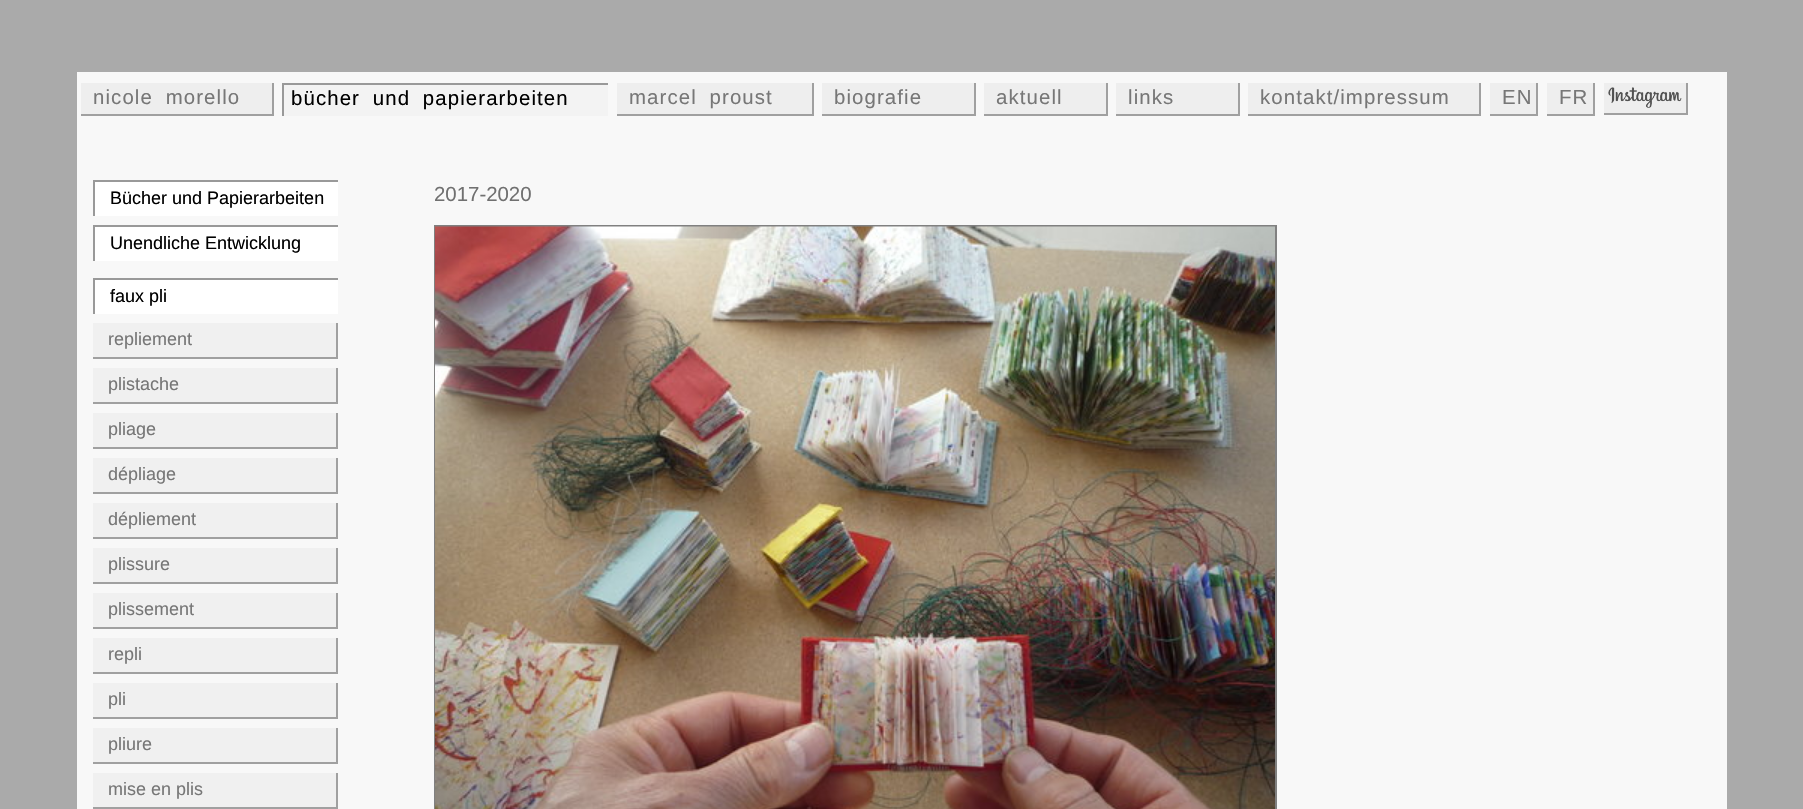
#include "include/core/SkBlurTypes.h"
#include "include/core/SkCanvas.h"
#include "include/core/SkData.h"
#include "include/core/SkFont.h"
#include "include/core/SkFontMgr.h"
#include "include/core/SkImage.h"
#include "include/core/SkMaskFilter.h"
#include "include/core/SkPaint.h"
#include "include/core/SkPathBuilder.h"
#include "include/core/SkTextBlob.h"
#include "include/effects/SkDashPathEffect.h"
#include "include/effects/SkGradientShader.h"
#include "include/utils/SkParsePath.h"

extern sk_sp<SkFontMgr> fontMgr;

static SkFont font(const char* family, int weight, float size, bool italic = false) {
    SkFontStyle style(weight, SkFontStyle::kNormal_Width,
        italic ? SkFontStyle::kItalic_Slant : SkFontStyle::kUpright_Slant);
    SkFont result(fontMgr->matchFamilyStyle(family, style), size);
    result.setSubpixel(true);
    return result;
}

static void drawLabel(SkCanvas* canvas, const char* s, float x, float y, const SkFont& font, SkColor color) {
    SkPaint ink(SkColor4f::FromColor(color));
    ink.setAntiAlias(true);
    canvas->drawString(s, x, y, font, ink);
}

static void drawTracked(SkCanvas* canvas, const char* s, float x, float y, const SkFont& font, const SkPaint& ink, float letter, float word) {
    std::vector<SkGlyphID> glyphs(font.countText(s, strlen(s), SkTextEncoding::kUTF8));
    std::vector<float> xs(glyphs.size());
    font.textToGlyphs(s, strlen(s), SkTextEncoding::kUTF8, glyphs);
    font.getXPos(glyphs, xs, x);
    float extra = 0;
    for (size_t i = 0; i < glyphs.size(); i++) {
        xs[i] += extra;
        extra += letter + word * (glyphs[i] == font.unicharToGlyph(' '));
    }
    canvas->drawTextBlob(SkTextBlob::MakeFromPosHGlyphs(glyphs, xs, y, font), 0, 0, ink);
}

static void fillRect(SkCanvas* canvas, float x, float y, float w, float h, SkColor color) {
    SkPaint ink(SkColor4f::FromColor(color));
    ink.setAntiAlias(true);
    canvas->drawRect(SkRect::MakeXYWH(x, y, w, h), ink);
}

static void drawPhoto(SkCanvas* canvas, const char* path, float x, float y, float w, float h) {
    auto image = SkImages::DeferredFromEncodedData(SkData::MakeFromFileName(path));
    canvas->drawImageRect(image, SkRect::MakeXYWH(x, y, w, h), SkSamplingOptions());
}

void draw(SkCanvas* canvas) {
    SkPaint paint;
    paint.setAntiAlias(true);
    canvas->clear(0xFFAAAAAA);
    fillRect(canvas, 77, 72, 1650, 737, 0xFFF8F8F8);
    fillRect(canvas, 81, 83, 191, 31, 0xFFEEEEEE);
    fillRect(canvas, 272, 83, 2, 33, 0xFFA0A0A0);
    fillRect(canvas, 81, 114, 192, 2, 0xFFA0A0A0);
    SkFont font1 = font("Liberation Sans", 400, 20.4f);
    paint.setColor(0xFF777777);
    drawTracked(canvas, "nicole morello", 93, 104, font1, paint, 1.1f, 6);
    fillRect(canvas, 284, 85, 324, 31, 0xFFF3F3F3);
    fillRect(canvas, 282, 83, 326, 2, 0xFF999999);
    fillRect(canvas, 282, 83, 2, 33, 0xFF999999);
    paint.setColor(0xFF000000);
    drawTracked(canvas, "bücher und papierarbeiten", 291, 105, font1, paint, 1.1f, 6);
    fillRect(canvas, 617, 83, 195, 31, 0xFFEEEEEE);
    fillRect(canvas, 812, 83, 2, 33, 0xFFA0A0A0);
    fillRect(canvas, 617, 114, 196, 2, 0xFFA0A0A0);
    paint.setColor(0xFF777777);
    drawTracked(canvas, "marcel proust", 629, 104, font1, paint, 1.1f, 6);
    fillRect(canvas, 822, 83, 152, 31, 0xFFEEEEEE);
    fillRect(canvas, 974, 83, 2, 33, 0xFFA0A0A0);
    fillRect(canvas, 822, 114, 153, 2, 0xFFA0A0A0);
    drawTracked(canvas, "biografie", 834, 104, font1, paint, 1.1f, 0);
    fillRect(canvas, 984, 83, 122, 31, 0xFFEEEEEE);
    fillRect(canvas, 1106, 83, 2, 33, 0xFFA0A0A0);
    fillRect(canvas, 984, 114, 123, 2, 0xFFA0A0A0);
    drawTracked(canvas, "aktuell", 996, 104, font1, paint, 1.1f, 0);
    fillRect(canvas, 1116, 83, 122, 31, 0xFFEEEEEE);
    fillRect(canvas, 1238, 83, 2, 33, 0xFFA0A0A0);
    fillRect(canvas, 1116, 114, 123, 2, 0xFFA0A0A0);
    drawTracked(canvas, "links", 1128, 104, font1, paint, 1.1f, 0);
    fillRect(canvas, 1248, 83, 231, 31, 0xFFEEEEEE);
    fillRect(canvas, 1479, 83, 2, 33, 0xFFA0A0A0);
    fillRect(canvas, 1248, 114, 233, 2, 0xFFA0A0A0);
    drawTracked(canvas, "kontakt/impressum", 1260, 104, font1, paint, 1.1f, 0);
    fillRect(canvas, 1490, 83, 46, 31, 0xFFEEEEEE);
    fillRect(canvas, 1536, 83, 2, 33, 0xFFA0A0A0);
    fillRect(canvas, 1490, 114, 48, 2, 0xFFA0A0A0);
    drawTracked(canvas, "EN", 1502, 104, font1, paint, 1.1f, 0);
    fillRect(canvas, 1547, 83, 46, 31, 0xFFEEEEEE);
    fillRect(canvas, 1593, 83, 2, 33, 0xFFA0A0A0);
    fillRect(canvas, 1547, 114, 48, 2, 0xFFA0A0A0);
    drawTracked(canvas, "FR", 1559, 104, font1, paint, 1.1f, 0);
    fillRect(canvas, 1604, 83, 82, 30, 0xFFEEEEEE);
    fillRect(canvas, 1686, 83, 2, 31, 0xFFA0A0A0);
    fillRect(canvas, 1604, 113, 84, 2, 0xFFA0A0A0);
    drawPhoto(canvas, "assets/img1.png", 1608, 87, 74, 21);
    fillRect(canvas, 95, 182, 243, 34, 0xFFFFFFFF);
    fillRect(canvas, 93, 180, 245, 2, 0xFF999999);
    fillRect(canvas, 93, 180, 2, 36, 0xFF999999);
    SkFont font2 = font("Liberation Sans", 400, 18);
    drawLabel(canvas, "Bücher und Papierarbeiten", 110, 204, font2, 0xFF000000);
    fillRect(canvas, 95, 227, 243, 34, 0xFFFFFFFF);
    fillRect(canvas, 93, 225, 245, 2, 0xFF999999);
    fillRect(canvas, 93, 225, 2, 36, 0xFF999999);
    drawLabel(canvas, "Unendliche Entwicklung", 110, 249, font2, 0xFF000000);
    fillRect(canvas, 95, 280, 243, 34, 0xFFFFFFFF);
    fillRect(canvas, 93, 278, 245, 2, 0xFF999999);
    fillRect(canvas, 93, 278, 2, 36, 0xFF999999);
    drawLabel(canvas, "faux pli", 110, 302, font2, 0xFF000000);
    fillRect(canvas, 93, 323, 243, 34, 0xFFF0F0F0);
    fillRect(canvas, 336, 323, 2, 36, 0xFFA0A0A0);
    fillRect(canvas, 93, 357, 245, 2, 0xFFA0A0A0);
    drawLabel(canvas, "repliement", 108, 345, font2, 0xFF777777);
    fillRect(canvas, 93, 368, 243, 34, 0xFFF0F0F0);
    fillRect(canvas, 336, 368, 2, 36, 0xFFA0A0A0);
    fillRect(canvas, 93, 402, 245, 2, 0xFFA0A0A0);
    drawLabel(canvas, "plistache", 108, 390, font2, 0xFF777777);
    fillRect(canvas, 93, 413, 243, 34, 0xFFF0F0F0);
    fillRect(canvas, 336, 413, 2, 36, 0xFFA0A0A0);
    fillRect(canvas, 93, 447, 245, 2, 0xFFA0A0A0);
    drawLabel(canvas, "pliage", 108, 435, font2, 0xFF777777);
    fillRect(canvas, 93, 458, 243, 34, 0xFFF0F0F0);
    fillRect(canvas, 336, 458, 2, 36, 0xFFA0A0A0);
    fillRect(canvas, 93, 492, 245, 2, 0xFFA0A0A0);
    drawLabel(canvas, "dépliage", 108, 480, font2, 0xFF777777);
    fillRect(canvas, 93, 503, 243, 34, 0xFFF0F0F0);
    fillRect(canvas, 336, 503, 2, 36, 0xFFA0A0A0);
    fillRect(canvas, 93, 537, 245, 2, 0xFFA0A0A0);
    drawLabel(canvas, "dépliement", 108, 525, font2, 0xFF777777);
    fillRect(canvas, 93, 548, 243, 34, 0xFFF0F0F0);
    fillRect(canvas, 336, 548, 2, 36, 0xFFA0A0A0);
    fillRect(canvas, 93, 582, 245, 2, 0xFFA0A0A0);
    drawLabel(canvas, "plissure", 108, 570, font2, 0xFF777777);
    fillRect(canvas, 93, 593, 243, 34, 0xFFF0F0F0);
    fillRect(canvas, 336, 593, 2, 36, 0xFFA0A0A0);
    fillRect(canvas, 93, 627, 245, 2, 0xFFA0A0A0);
    drawLabel(canvas, "plissement", 108, 615, font2, 0xFF777777);
    fillRect(canvas, 93, 638, 243, 34, 0xFFF0F0F0);
    fillRect(canvas, 336, 638, 2, 36, 0xFFA0A0A0);
    fillRect(canvas, 93, 672, 245, 2, 0xFFA0A0A0);
    drawLabel(canvas, "repli", 108, 660, font2, 0xFF777777);
    fillRect(canvas, 93, 683, 243, 34, 0xFFF0F0F0);
    fillRect(canvas, 336, 683, 2, 36, 0xFFA0A0A0);
    fillRect(canvas, 93, 717, 245, 2, 0xFFA0A0A0);
    drawLabel(canvas, "pli", 108, 705, font2, 0xFF777777);
    fillRect(canvas, 93, 728, 243, 34, 0xFFF0F0F0);
    fillRect(canvas, 336, 728, 2, 36, 0xFFA0A0A0);
    fillRect(canvas, 93, 762, 245, 2, 0xFFA0A0A0);
    drawLabel(canvas, "pliure", 108, 750, font2, 0xFF777777);
    fillRect(canvas, 93, 773, 243, 34, 0xFFF0F0F0);
    fillRect(canvas, 336, 773, 2, 36, 0xFFA0A0A0);
    fillRect(canvas, 93, 807, 245, 2, 0xFFA0A0A0);
    drawLabel(canvas, "mise en plis", 108, 795, font2, 0xFF777777);
    drawLabel(canvas, "2017-2020", 434, 201, font1, 0xFF707070);
    paint.setStroke(true);
    paint.setStrokeWidth(2);
    paint.setColor(0xFF808080);
    canvas->drawRect(SkRect::MakeXYWH(435, 226, 841, 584), paint);
    drawPhoto(canvas, "assets/img2.png", 435, 226, 840, 583);
}
